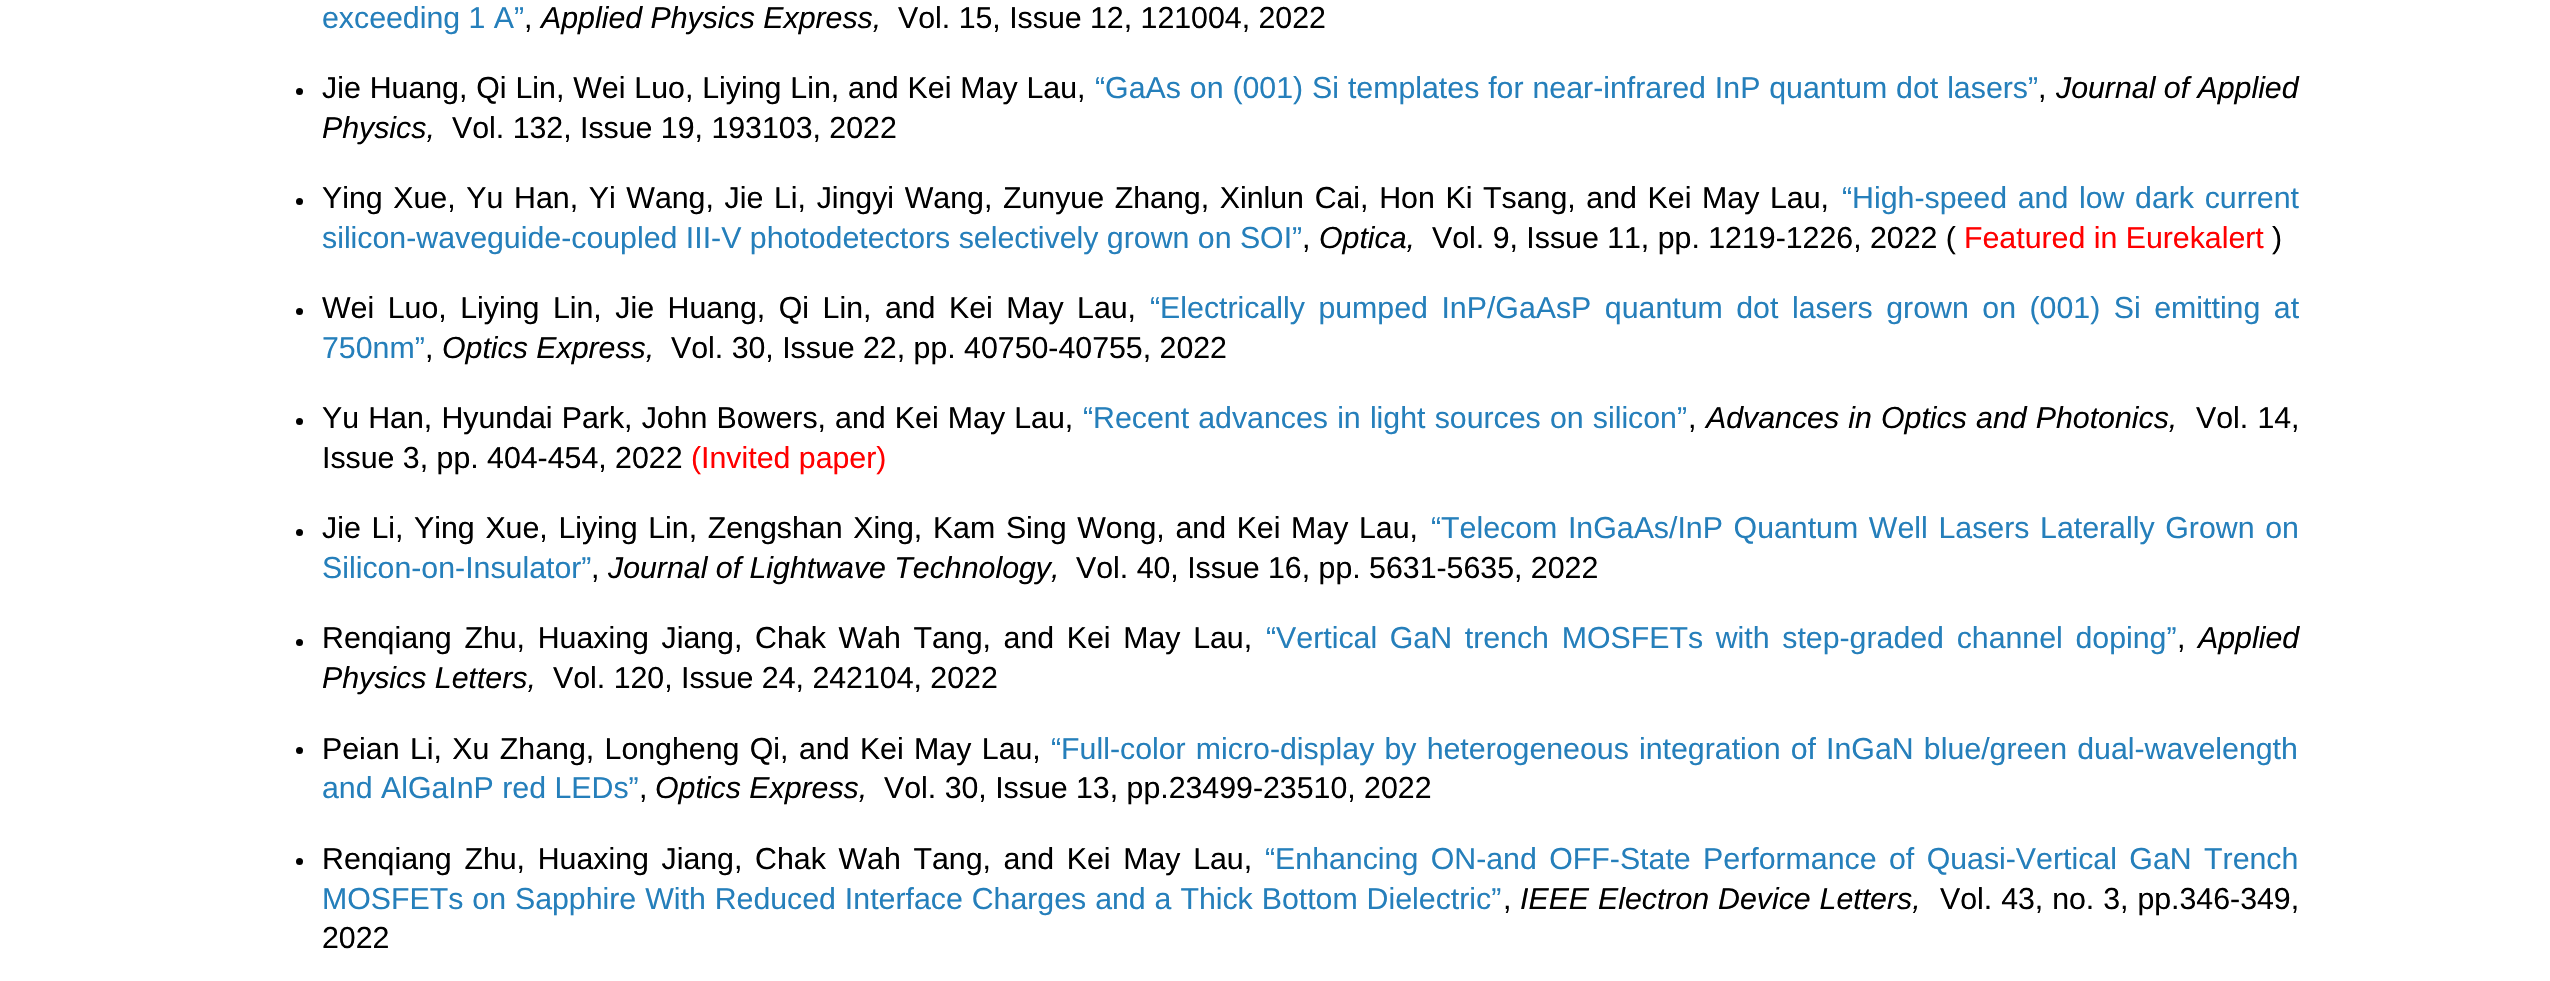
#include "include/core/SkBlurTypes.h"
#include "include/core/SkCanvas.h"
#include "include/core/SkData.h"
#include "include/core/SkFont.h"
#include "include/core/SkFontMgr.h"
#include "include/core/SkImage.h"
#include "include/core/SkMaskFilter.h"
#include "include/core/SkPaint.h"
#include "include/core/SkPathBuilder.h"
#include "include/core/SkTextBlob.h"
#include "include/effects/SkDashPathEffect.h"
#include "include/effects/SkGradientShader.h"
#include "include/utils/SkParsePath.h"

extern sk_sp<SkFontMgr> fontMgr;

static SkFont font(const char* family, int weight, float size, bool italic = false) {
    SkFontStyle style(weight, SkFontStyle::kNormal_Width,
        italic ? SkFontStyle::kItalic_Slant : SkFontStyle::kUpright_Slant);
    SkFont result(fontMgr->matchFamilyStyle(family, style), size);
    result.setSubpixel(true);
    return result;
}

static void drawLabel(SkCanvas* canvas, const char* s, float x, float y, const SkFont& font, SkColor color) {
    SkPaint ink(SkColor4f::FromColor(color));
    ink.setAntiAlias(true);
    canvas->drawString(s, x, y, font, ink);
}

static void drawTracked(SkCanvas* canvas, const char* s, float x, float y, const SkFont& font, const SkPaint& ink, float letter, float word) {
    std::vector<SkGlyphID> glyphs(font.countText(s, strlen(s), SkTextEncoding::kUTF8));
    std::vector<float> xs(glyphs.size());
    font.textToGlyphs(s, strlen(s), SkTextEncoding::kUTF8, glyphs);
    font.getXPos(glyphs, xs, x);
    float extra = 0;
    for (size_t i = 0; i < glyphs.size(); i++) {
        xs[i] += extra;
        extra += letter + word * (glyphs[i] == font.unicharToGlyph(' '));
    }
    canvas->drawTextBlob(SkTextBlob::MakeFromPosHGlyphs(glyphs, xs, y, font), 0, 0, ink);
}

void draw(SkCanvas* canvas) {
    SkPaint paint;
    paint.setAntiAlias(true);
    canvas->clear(0xFFFFFFFF);
    SkFont font1 = font("Liberation Sans", 400, 30.3f);
    drawLabel(canvas, "exceeding 1 A”", 322, 28, font1, 0xFF257FBB);
    drawLabel(canvas, ",", 524, 28, font1, 0xFF000000);
    SkFont font2 = font("Liberation Sans", 400, 30.3f, true);
    drawLabel(canvas, "Applied Physics Express,", 541, 28, font2, 0xFF000000);
    drawLabel(canvas, "Vol. 15, Issue 12, 121004, 2022", 898, 28, font1, 0xFF000000);
    paint.setColor(0xFF000000);
    canvas->drawCircle(299.5f, 91.5f, 3.5f, paint);
    drawTracked(canvas, "Jie Huang, Qi Lin, Wei Luo, Liying Lin, and Kei May Lau,", 322, 98, font1, paint, 0, 0.5f);
    paint.setColor(0xFF257FBB);
    drawTracked(canvas, "“GaAs on (001) Si templates for near-infrared InP quantum dot lasers”", 1095, 98, font1, paint, 0, 0.5f);
    drawLabel(canvas, ",", 2038, 98, font1, 0xFF000000);
    drawLabel(canvas, "Journal of Applied", 2056, 98, font2, 0xFF000000);
    drawLabel(canvas, "Physics,", 322, 138, font2, 0xFF000000);
    drawLabel(canvas, "Vol. 132, Issue 19, 193103, 2022", 452, 138, font1, 0xFF000000);
    paint.setColor(0xFF000000);
    canvas->drawCircle(299.5f, 201.5f, 3.5f, paint);
    drawTracked(canvas, "Ying Xue, Yu Han, Yi Wang, Jie Li, Jingyi Wang, Zunyue Zhang, Xinlun Cai, Hon Ki Tsang, and Kei May Lau,", 322, 208, font1, paint, 0, 2.25f);
    paint.setColor(0xFF257FBB);
    drawTracked(canvas, "“High-speed and low dark current", 1842, 208, font1, paint, 0, 2.25f);
    drawLabel(canvas, "silicon-waveguide-coupled III-V photodetectors selectively grown on SOI”", 322, 248, font1, 0xFF257FBB);
    drawLabel(canvas, ",", 1302, 248, font1, 0xFF000000);
    drawLabel(canvas, "Optica,", 1319, 248, font2, 0xFF000000);
    drawLabel(canvas, "Vol. 9, Issue 11, pp. 1219-1226, 2022 (", 1432, 248, font1, 0xFF000000);
    drawLabel(canvas, "Featured in Eurekalert", 1964, 248, font1, 0xFFFF0000);
    drawLabel(canvas, ")", 2272, 248, font1, 0xFF000000);
    paint.setColor(0xFF000000);
    canvas->drawCircle(299.5f, 311.5f, 3.5f, paint);
    drawTracked(canvas, "Wei Luo, Liying Lin, Jie Huang, Qi Lin, and Kei May Lau,", 322, 318, font1, paint, 0, 5.1f);
    paint.setColor(0xFF257FBB);
    drawTracked(canvas, "“Electrically pumped InP/GaAsP quantum dot lasers grown on (001) Si emitting at", 1150, 318, font1, paint, 0, 5.1f);
    drawLabel(canvas, "750nm”", 322, 358, font1, 0xFF257FBB);
    drawLabel(canvas, ",", 425, 358, font1, 0xFF000000);
    drawLabel(canvas, "Optics Express,", 442, 358, font2, 0xFF000000);
    drawLabel(canvas, "Vol. 30, Issue 22, pp. 40750-40755, 2022", 671, 358, font1, 0xFF000000);
    paint.setColor(0xFF000000);
    canvas->drawCircle(299.5f, 421.5f, 3.5f, paint);
    drawTracked(canvas, "Yu Han, Hyundai Park, John Bowers, and Kei May Lau,", 322, 428, font1, paint, 0, 0.75f);
    paint.setColor(0xFF257FBB);
    drawTracked(canvas, "“Recent advances in light sources on silicon”", 1083, 428, font1, paint, 0, 0.75f);
    drawLabel(canvas, ",", 1688, 428, font1, 0xFF000000);
    paint.setColor(0xFF000000);
    drawTracked(canvas, "Advances in Optics and Photonics,", 1706, 428, font2, paint, 0, 0.75f);
    drawTracked(canvas, "Vol. 14,", 2196, 428, font1, paint, 0, 0.75f);
    drawLabel(canvas, "Issue 3, pp. 404-454, 2022", 322, 468, font1, 0xFF000000);
    drawLabel(canvas, "(Invited paper)", 691, 468, font1, 0xFFFF0000);
    canvas->drawCircle(299.5f, 532.5f, 3.5f, paint);
    drawTracked(canvas, "Jie Li, Ying Xue, Liying Lin, Zengshan Xing, Kam Sing Wong, and Kei May Lau,", 322, 538, font1, paint, 0, 2.25f);
    paint.setColor(0xFF257FBB);
    drawTracked(canvas, "“Telecom InGaAs/InP Quantum Well Lasers Laterally Grown on", 1431, 538, font1, paint, 0, 2.25f);
    drawLabel(canvas, "Silicon-on-Insulator”", 322, 578, font1, 0xFF257FBB);
    drawLabel(canvas, ",", 591, 578, font1, 0xFF000000);
    drawLabel(canvas, "Journal of Lightwave Technology,", 608, 578, font2, 0xFF000000);
    drawLabel(canvas, "Vol. 40, Issue 16, pp. 5631-5635, 2022", 1076, 578, font1, 0xFF000000);
    paint.setColor(0xFF000000);
    canvas->drawCircle(299.5f, 642.5f, 3.5f, paint);
    drawTracked(canvas, "Renqiang Zhu, Huaxing Jiang, Chak Wah Tang, and Kei May Lau,", 322, 648, font1, paint, 0, 4.25f);
    paint.setColor(0xFF257FBB);
    drawTracked(canvas, "“Vertical GaN trench MOSFETs with step-graded channel doping”", 1266, 648, font1, paint, 0, 4.25f);
    drawLabel(canvas, ",", 2177, 648, font1, 0xFF000000);
    drawLabel(canvas, "Applied", 2198, 648, font2, 0xFF000000);
    drawLabel(canvas, "Physics Letters,", 322, 688, font2, 0xFF000000);
    drawLabel(canvas, "Vol. 120, Issue 24, 242104, 2022", 553, 688, font1, 0xFF000000);
    paint.setColor(0xFF000000);
    canvas->drawCircle(299.5f, 750.5f, 3.5f, paint);
    drawTracked(canvas, "Peian Li, Xu Zhang, Longheng Qi, and Kei May Lau,", 322, 759, font1, paint, 0, 2);
    paint.setColor(0xFF257FBB);
    drawTracked(canvas, "“Full-color micro-display by heterogeneous integration of InGaN blue/green dual-wavelength", 1051, 759, font1, paint, 0, 1.75f);
    drawLabel(canvas, "and AlGaInP red LEDs”", 322, 798, font1, 0xFF257FBB);
    drawLabel(canvas, ",", 639, 798, font1, 0xFF000000);
    drawLabel(canvas, "Optics Express,", 655, 798, font2, 0xFF000000);
    drawLabel(canvas, "Vol. 30, Issue 13, pp.23499-23510, 2022", 884, 798, font1, 0xFF000000);
    paint.setColor(0xFF000000);
    canvas->drawCircle(299.5f, 861.5f, 3.5f, paint);
    drawTracked(canvas, "Renqiang Zhu, Huaxing Jiang, Chak Wah Tang, and Kei May Lau,", 322, 869, font1, paint, 0, 4.25f);
    paint.setColor(0xFF257FBB);
    drawTracked(canvas, "“Enhancing ON-and OFF-State Performance of Quasi-Vertical GaN Trench", 1265, 869, font1, paint, 0, 4);
    drawTracked(canvas, "MOSFETs on Sapphire With Reduced Interface Charges and a Thick Bottom Dielectric”", 322, 909, font1, paint, 0, 0.5f);
    drawLabel(canvas, ",", 1503, 909, font1, 0xFF000000);
    paint.setColor(0xFF000000);
    drawTracked(canvas, "IEEE Electron Device Letters,", 1520, 909, font2, paint, 0, 0.5f);
    drawTracked(canvas, "Vol. 43, no. 3, pp.346-349,", 1940, 909, font1, paint, 0, 0.5f);
    drawLabel(canvas, "2022", 322, 948, font1, 0xFF000000);
}
